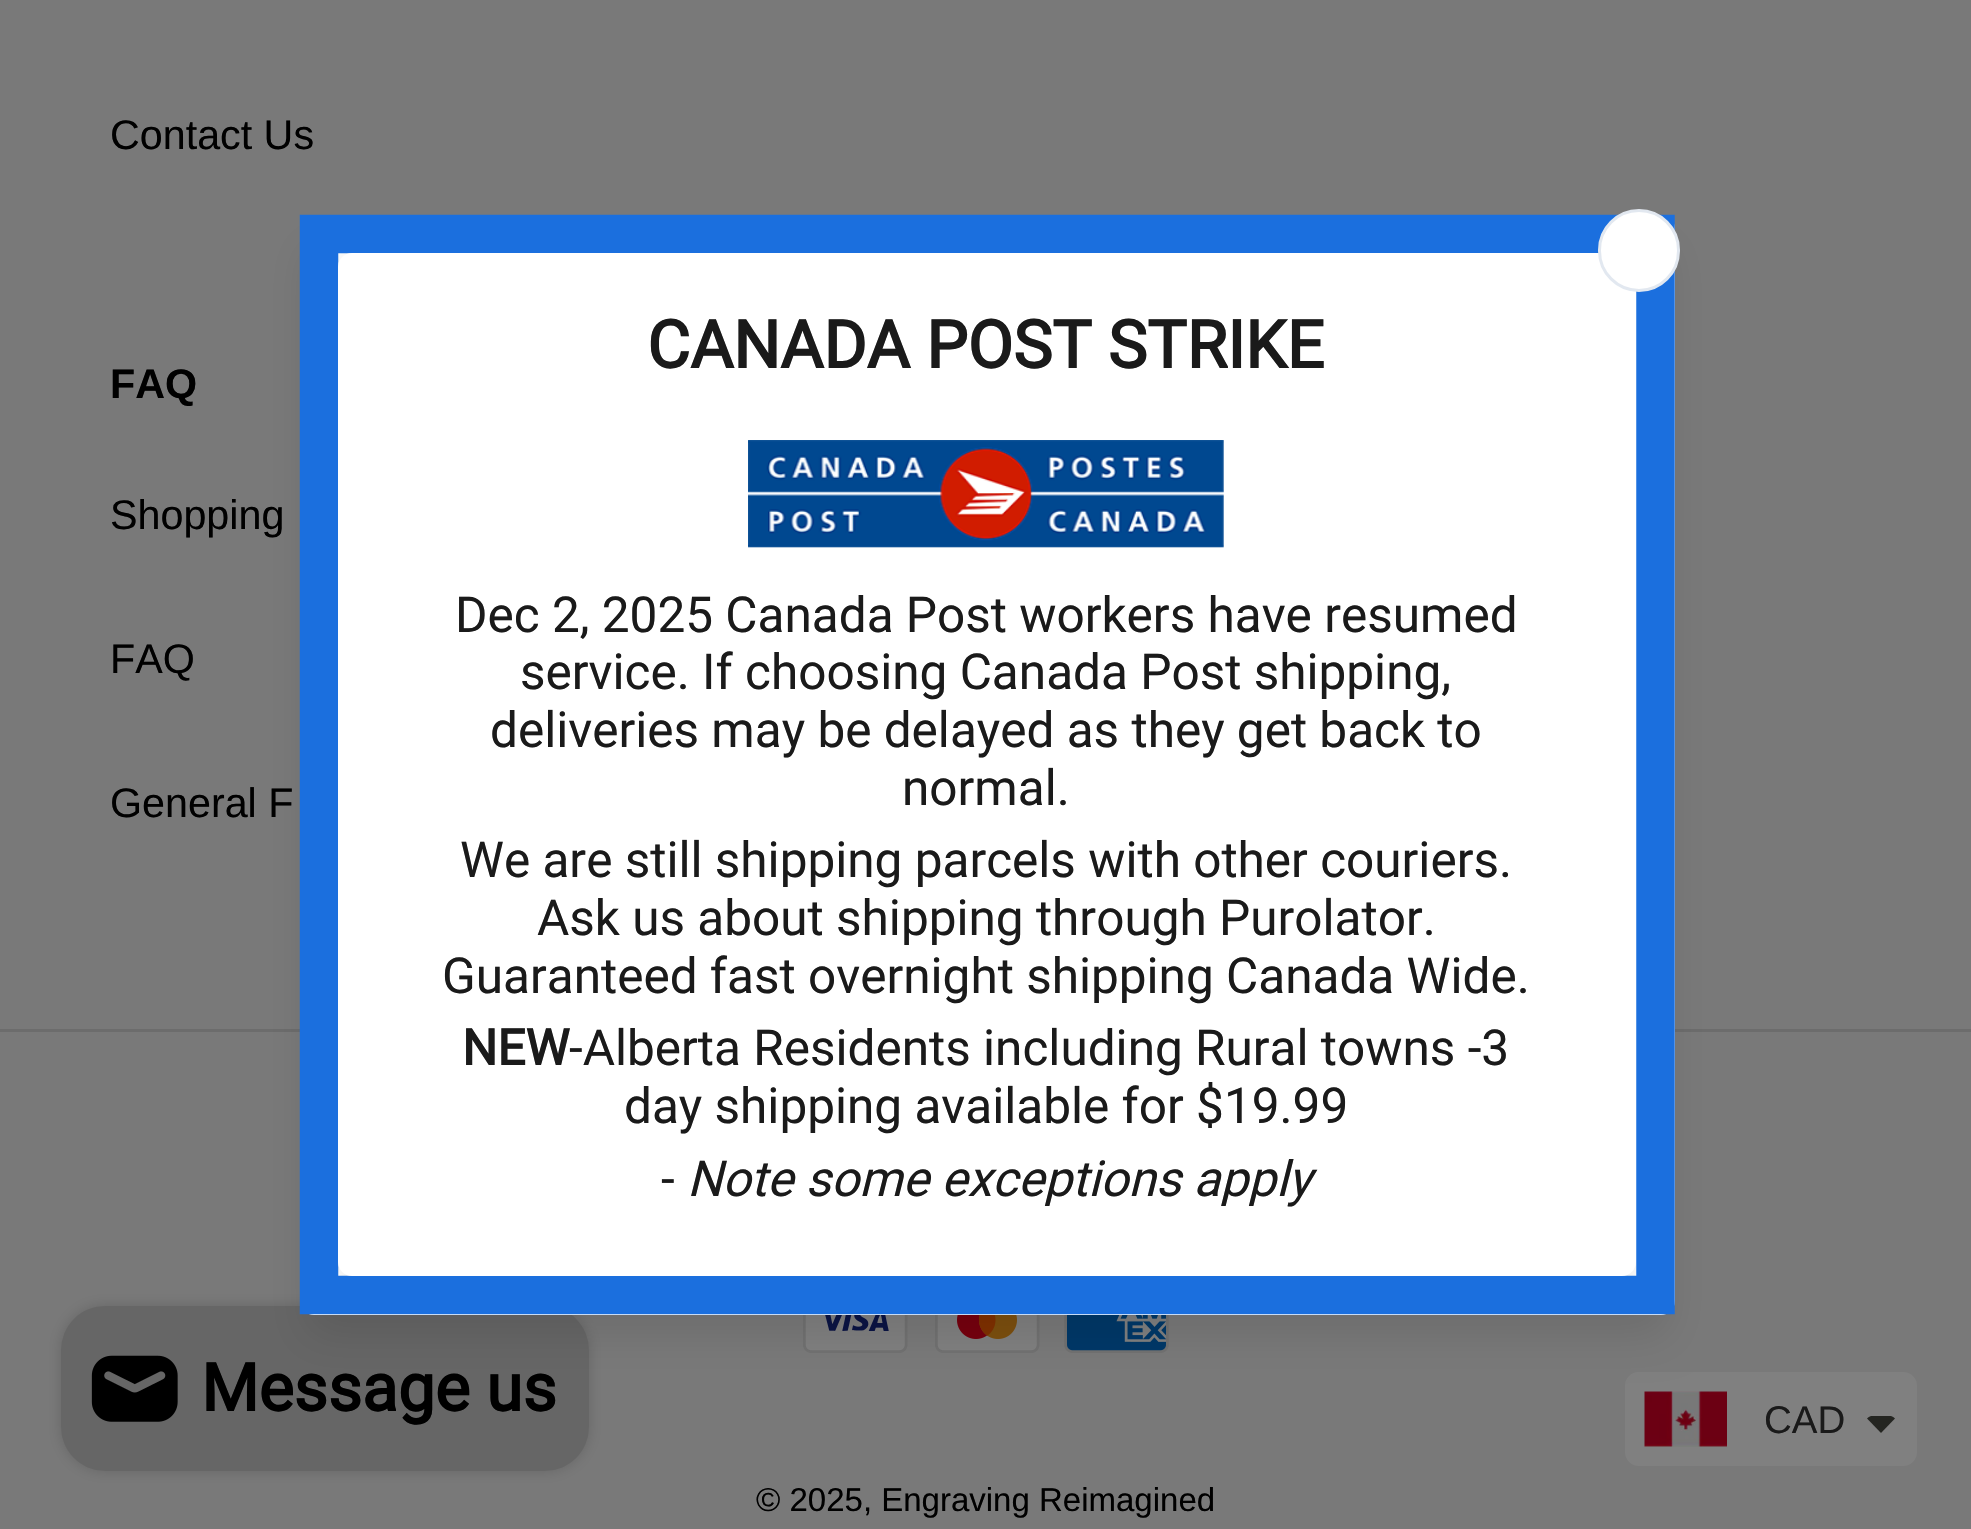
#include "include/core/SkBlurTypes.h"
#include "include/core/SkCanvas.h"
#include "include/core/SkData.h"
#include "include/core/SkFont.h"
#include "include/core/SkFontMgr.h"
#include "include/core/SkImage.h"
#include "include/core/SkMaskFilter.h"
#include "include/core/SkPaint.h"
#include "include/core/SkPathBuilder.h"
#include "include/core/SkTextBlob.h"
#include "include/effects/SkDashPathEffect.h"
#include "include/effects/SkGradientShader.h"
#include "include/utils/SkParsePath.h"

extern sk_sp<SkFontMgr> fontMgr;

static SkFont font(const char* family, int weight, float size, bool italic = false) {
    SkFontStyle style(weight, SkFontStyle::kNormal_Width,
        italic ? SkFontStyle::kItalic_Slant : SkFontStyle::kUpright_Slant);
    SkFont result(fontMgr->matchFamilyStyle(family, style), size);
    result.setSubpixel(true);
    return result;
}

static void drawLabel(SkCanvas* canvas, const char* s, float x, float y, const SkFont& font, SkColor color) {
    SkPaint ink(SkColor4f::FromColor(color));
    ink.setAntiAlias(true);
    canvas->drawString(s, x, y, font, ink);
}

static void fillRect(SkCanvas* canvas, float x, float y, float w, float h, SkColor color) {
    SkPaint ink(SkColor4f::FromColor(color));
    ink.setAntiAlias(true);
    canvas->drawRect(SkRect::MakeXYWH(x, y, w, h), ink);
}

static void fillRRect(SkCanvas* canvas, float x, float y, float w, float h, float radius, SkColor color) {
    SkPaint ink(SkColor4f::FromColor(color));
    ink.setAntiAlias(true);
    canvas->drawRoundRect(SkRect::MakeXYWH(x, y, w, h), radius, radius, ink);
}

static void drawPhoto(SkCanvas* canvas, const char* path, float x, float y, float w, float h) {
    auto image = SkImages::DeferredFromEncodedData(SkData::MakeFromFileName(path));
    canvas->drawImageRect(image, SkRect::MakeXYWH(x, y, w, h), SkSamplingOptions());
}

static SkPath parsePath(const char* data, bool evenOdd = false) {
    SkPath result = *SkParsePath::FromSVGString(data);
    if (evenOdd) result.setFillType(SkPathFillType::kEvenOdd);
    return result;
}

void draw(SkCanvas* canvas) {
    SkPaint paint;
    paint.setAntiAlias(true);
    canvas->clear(0xFF797979);
    SkFont font1 = font("Liberation Sans", 400, 41.25f);
    drawLabel(canvas, "Contact Us", 110, 149, font1, 0xFF000000);
    SkFont font2 = font("Liberation Sans", 700, 41.25f);
    drawLabel(canvas, "FAQ", 110, 398, font2, 0xFF000000);
    drawLabel(canvas, "Shopping", 110, 529, font1, 0xFF000000);
    drawLabel(canvas, "FAQ", 110, 673, font1, 0xFF000000);
    drawLabel(canvas, "General F", 110, 817, font1, 0xFF000000);
    fillRect(canvas, 0, 1029, 1971, 3, 0xFF6C6C6C);
    drawPhoto(canvas, "assets/img1.png", 803, 1315, 105, 38);
    drawPhoto(canvas, "assets/img2.png", 935, 1315, 105, 38);
    drawPhoto(canvas, "assets/img3.png", 1064, 1315, 105, 38);
    SkFont font3 = font("Liberation Sans", 400, 33);
    drawLabel(canvas, "© 2025, Engraving Reimagined", 756, 1511, font3, 0xFF000000);
    paint.setColor(0x26000000);
    paint.setMaskFilter(SkMaskFilter::MakeBlur(kNormal_SkBlurStyle, 7));
    canvas->drawRoundRect(SkRect::MakeXYWH(61, 1306, 528, 165), 44, 44, paint);
    paint.setMaskFilter(nullptr);
    fillRRect(canvas, 61, 1306, 528, 165, 44, 0xFF666666);
    fillRRect(canvas, 1625, 1372, 292, 94, 14, 0xFF808080);
    drawPhoto(canvas, "assets/img6.png", 1644, 1391, 83, 56);
    paint.setColor(0x1A000000);
    paint.setMaskFilter(SkMaskFilter::MakeBlur(kNormal_SkBlurStyle, 20.5f));
    canvas->drawRoundRect(SkRect::MakeXYWH(308, 250, 1359, 1084), 6, 6, paint);
    paint.setMaskFilter(nullptr);
    fillRRect(canvas, 300, 215, 1375, 1100, 14, 0xFFFFFFFF);
    paint.setStroke(true);
    paint.setStrokeWidth(38.5f);
    paint.setColor(0xFF1B6FDE);
    canvas->drawPath(parsePath("M319 234H1655.5V1295H319Z"), paint);
    canvas->save();
    canvas->clipRect(SkRect::MakeXYWH(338, 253, 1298, 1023));
    paint.setStroke(false);
    paint.setColor(0x0D000000);
    paint.setMaskFilter(SkMaskFilter::MakeBlur(kNormal_SkBlurStyle, 8));
    canvas->drawRoundRect(SkRect::MakeXYWH(344, 270, 1287, 1012), 8, 8, paint);
    paint.setMaskFilter(nullptr);
    paint.setColor(0x1F000000);
    paint.setMaskFilter(SkMaskFilter::MakeBlur(kNormal_SkBlurStyle, 27.5f));
    canvas->drawRoundRect(SkRect::MakeXYWH(347, 261, 1281, 1007), 6, 6, paint);
    paint.setMaskFilter(nullptr);
    canvas->restore();
    fillRRect(canvas, 338, 253, 1298, 1023, 14, 0xFFFFFFFF);
    paint.setColor(0xFFFFFFFF);
    canvas->drawRoundRect(SkRect::MakeXYWH(1599.5f, 210.5f, 79, 80), 39.5f, 39.5f, paint);
    paint.setStroke(true);
    paint.setStrokeWidth(3);
    paint.setColor(0xFFE2E8F0);
    canvas->drawRoundRect(SkRect::MakeXYWH(1599.5f, 210.5f, 79, 80), 39.5f, 39.5f, paint);
    SkFont font4 = font("Roboto", 700, 66);
    drawLabel(canvas, "CANADA POST STRIKE", 647, 368, font4, 0xFF1A1A1A);
    drawPhoto(canvas, "assets/img4.png", 748, 440, 476, 108);
    SkFont font5 = font("Roboto", 400, 49.5f);
    drawLabel(canvas, "Dec 2, 2025 Canada Post workers have resumed", 455, 632, font5, 0xFF1A1A1A);
    drawLabel(canvas, "service. If choosing Canada Post shipping,", 520, 689, font5, 0xFF1A1A1A);
    drawLabel(canvas, "deliveries may be delayed as they get back to", 490, 747, font5, 0xFF1A1A1A);
    drawLabel(canvas, "normal.", 902, 805, font5, 0xFF1A1A1A);
    drawLabel(canvas, "We are still shipping parcels with other couriers.", 460, 877, font5, 0xFF1A1A1A);
    drawLabel(canvas, "Ask us about shipping through Purolator.", 537, 935, font5, 0xFF1A1A1A);
    drawLabel(canvas, "Guaranteed fast overnight shipping Canada Wide.", 442, 993, font5, 0xFF1A1A1A);
    SkFont font6 = font("Roboto", 700, 49.5f);
    drawLabel(canvas, "NEW", 462, 1065, font6, 0xFF1A1A1A);
    drawLabel(canvas, "-Alberta Residents including Rural towns -3", 569, 1065, font5, 0xFF1A1A1A);
    drawLabel(canvas, "day shipping available for $19.99", 624, 1123, font5, 0xFF1A1A1A);
    drawLabel(canvas, "-", 661, 1196, font5, 0xFF1A1A1A);
    SkFont font7 = font("Roboto", 400, 49.5f, true);
    drawLabel(canvas, "Note some exceptions apply", 687, 1196, font7, 0xFF1A1A1A);
    drawPhoto(canvas, "assets/img5.png", 91, 1355, 87, 67);
    drawLabel(canvas, "Message us", 201, 1411, font4, 0xFF000000);
    SkFont font8 = font("Liberation Sans", 400, 38.5f);
    drawLabel(canvas, "CAD", 1764, 1433, font8, 0xFF1A1A1A);
    paint.setStroke(false);
    paint.setColor(0xFF242521);
    canvas->drawPath(parsePath("M1867 1418.5C1868 1417.5 1869.5 1416.5 1871 1416H1891C1892.5 1416.5 1894 1417.5 1895 1418.5L1881 1433Z"), paint);
}
